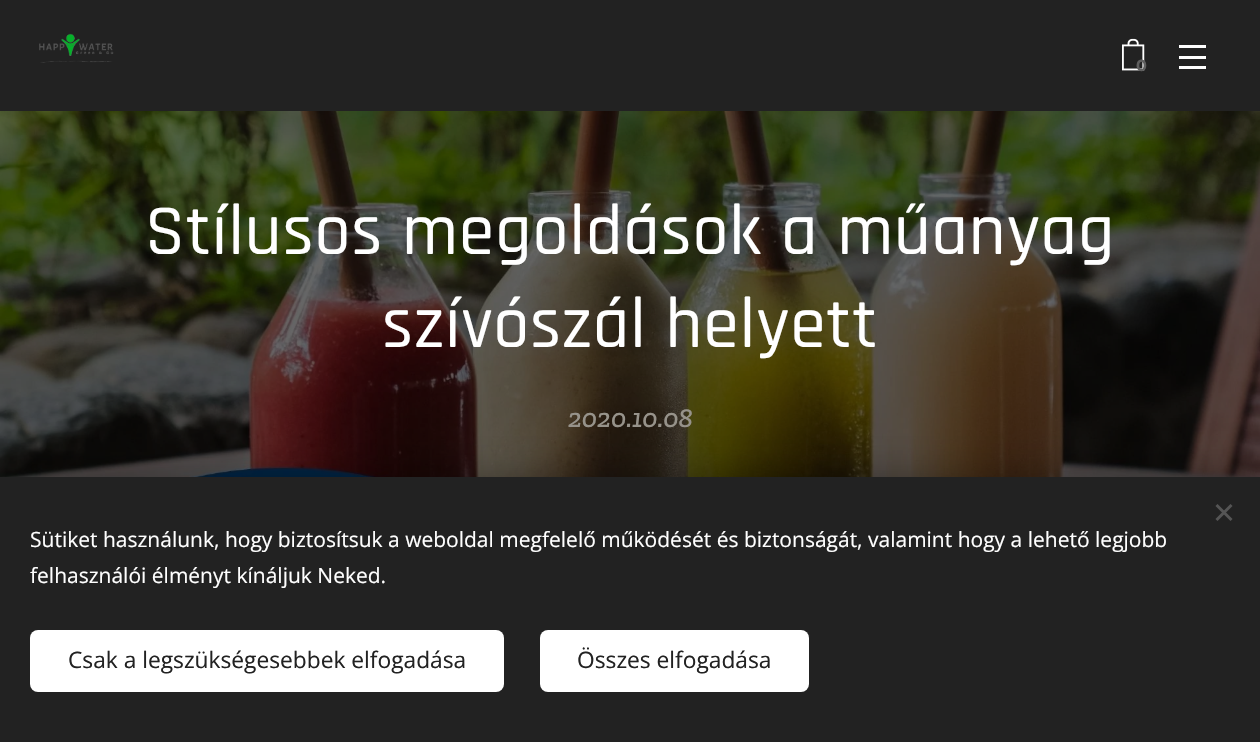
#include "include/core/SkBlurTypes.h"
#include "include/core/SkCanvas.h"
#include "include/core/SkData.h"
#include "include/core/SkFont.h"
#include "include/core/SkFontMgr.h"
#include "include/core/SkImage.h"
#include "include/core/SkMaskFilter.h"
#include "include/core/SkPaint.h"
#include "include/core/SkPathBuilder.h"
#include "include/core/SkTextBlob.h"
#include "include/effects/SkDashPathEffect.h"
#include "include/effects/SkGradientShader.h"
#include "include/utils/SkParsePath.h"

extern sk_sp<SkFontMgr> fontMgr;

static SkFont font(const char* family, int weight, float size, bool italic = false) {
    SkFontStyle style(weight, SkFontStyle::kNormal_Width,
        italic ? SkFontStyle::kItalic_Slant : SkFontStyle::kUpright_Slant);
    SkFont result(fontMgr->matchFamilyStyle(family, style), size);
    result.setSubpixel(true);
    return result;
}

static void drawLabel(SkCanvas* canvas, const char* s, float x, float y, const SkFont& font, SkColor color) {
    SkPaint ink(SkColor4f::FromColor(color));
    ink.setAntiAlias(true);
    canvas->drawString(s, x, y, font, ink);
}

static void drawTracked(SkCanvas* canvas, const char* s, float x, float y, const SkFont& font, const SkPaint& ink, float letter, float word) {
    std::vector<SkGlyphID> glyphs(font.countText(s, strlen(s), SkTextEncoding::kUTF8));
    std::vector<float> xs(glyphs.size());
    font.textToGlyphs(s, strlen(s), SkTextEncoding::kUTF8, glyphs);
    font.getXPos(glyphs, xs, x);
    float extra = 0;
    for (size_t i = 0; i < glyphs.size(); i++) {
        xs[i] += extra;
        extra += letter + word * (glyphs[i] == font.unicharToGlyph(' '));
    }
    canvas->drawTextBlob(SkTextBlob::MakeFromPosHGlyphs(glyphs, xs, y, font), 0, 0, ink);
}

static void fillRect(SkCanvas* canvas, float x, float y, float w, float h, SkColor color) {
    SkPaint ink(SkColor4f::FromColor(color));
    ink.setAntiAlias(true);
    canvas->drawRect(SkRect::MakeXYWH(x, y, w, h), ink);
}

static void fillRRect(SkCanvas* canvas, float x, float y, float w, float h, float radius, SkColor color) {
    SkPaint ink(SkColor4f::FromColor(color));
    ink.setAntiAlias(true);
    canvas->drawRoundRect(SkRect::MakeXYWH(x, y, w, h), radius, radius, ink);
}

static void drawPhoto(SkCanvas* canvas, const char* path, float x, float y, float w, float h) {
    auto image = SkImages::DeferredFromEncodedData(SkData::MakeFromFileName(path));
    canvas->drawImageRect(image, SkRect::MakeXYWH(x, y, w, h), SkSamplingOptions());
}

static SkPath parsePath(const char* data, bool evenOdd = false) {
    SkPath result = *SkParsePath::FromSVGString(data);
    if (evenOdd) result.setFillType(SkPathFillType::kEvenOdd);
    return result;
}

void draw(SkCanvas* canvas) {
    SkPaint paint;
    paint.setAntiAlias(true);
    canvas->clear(0xFFFFFFFF);
    fillRect(canvas, 0, 0, 1260, 111, 0xFF222222);
    drawPhoto(canvas, "assets/img1.png", 39, 33, 75, 30);
    drawPhoto(canvas, "assets/img2.png", 1122, 38, 23, 33);
    SkFont font1 = font("Montserrat", 700, 16);
    drawLabel(canvas, "0", 1136, 71, font1, 0xFF5F5F5F);
    fillRect(canvas, 1179, 56, 27, 3, 0xFFFFFFFF);
    fillRect(canvas, 1179, 45, 27, 3, 0xFFFFFFFF);
    fillRect(canvas, 1179, 66, 27, 3, 0xFFFFFFFF);
    drawPhoto(canvas, "assets/img3.png", 0, 111, 1260, 366);
    SkFont font2 = font("Rajdhani", 500, 72);
    paint.setColor(0xFFFFFFFF);
    drawTracked(canvas, "Stílusos megoldások a műanyag", 145, 254, font2, paint, 0.75f, 0);
    drawTracked(canvas, "szívószál helyett", 382, 347, font2, paint, 0.75f, 0);
    SkFont font3 = font("Zilla Slab", 500, 27, true);
    drawLabel(canvas, "2020.10.08", 568, 427, font3, 0xFF97938B);
    paint.setColor(0x54000000);
    paint.setMaskFilter(SkMaskFilter::MakeBlur(kNormal_SkBlurStyle, 19));
    canvas->drawRect(SkRect::MakeXYWH(0, 477, 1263, 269), paint);
    paint.setMaskFilter(nullptr);
    fillRect(canvas, 0, 477, 1260, 265, 0xFF222222);
    paint.setColor(0xFF555555);
    canvas->drawPath(parsePath("M1215.5 519L1230.5 504L1232.5 506L1217.5 521Z"), paint);
    canvas->drawPath(parsePath("M1217.5 504L1232.5 519L1230.5 521L1215.5 506Z"), paint);
    SkFont font4 = font("Open Sans", 400, 21);
    drawLabel(canvas, "Sütiket használunk, hogy biztosítsuk a weboldal megfelelő működését és biztonságát, valamint hogy a lehető legjobb", 30, 547, font4, 0xFFFFFFFF);
    drawLabel(canvas, "felhasználói élményt kínáljuk Neked.", 30, 583, font4, 0xFFFFFFFF);
    fillRRect(canvas, 30, 630, 474, 62, 8, 0xFFFFFFFF);
    SkFont font5 = font("Open Sans", 400, 22.75f);
    drawLabel(canvas, "Csak a legszükségesebbek elfogadása", 68, 668, font5, 0xFF222222);
    fillRRect(canvas, 540, 630, 269, 62, 8, 0xFFFFFFFF);
    drawLabel(canvas, "Összes elfogadása", 577, 668, font5, 0xFF222222);
}
